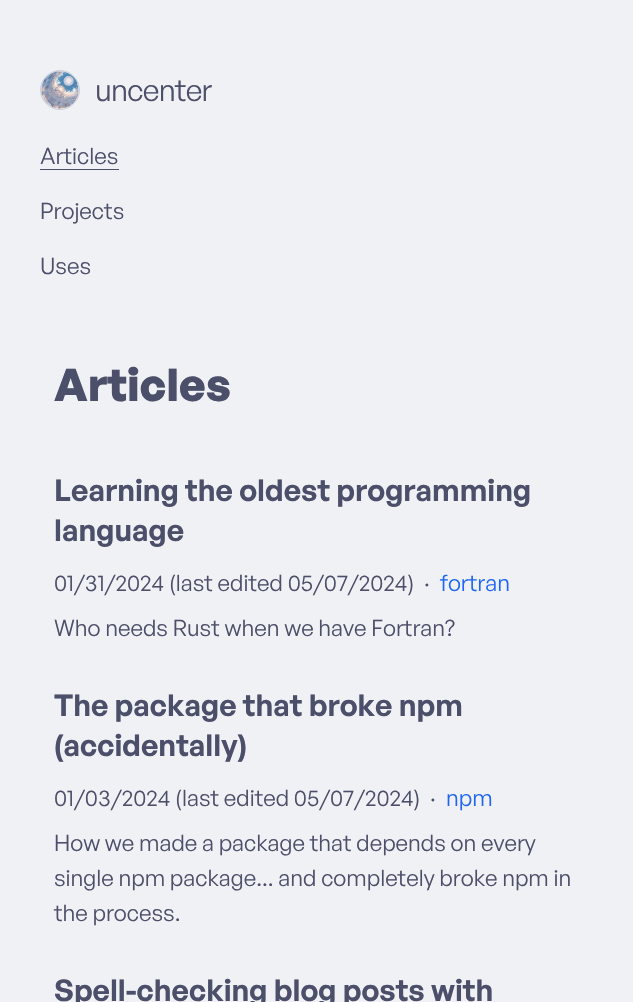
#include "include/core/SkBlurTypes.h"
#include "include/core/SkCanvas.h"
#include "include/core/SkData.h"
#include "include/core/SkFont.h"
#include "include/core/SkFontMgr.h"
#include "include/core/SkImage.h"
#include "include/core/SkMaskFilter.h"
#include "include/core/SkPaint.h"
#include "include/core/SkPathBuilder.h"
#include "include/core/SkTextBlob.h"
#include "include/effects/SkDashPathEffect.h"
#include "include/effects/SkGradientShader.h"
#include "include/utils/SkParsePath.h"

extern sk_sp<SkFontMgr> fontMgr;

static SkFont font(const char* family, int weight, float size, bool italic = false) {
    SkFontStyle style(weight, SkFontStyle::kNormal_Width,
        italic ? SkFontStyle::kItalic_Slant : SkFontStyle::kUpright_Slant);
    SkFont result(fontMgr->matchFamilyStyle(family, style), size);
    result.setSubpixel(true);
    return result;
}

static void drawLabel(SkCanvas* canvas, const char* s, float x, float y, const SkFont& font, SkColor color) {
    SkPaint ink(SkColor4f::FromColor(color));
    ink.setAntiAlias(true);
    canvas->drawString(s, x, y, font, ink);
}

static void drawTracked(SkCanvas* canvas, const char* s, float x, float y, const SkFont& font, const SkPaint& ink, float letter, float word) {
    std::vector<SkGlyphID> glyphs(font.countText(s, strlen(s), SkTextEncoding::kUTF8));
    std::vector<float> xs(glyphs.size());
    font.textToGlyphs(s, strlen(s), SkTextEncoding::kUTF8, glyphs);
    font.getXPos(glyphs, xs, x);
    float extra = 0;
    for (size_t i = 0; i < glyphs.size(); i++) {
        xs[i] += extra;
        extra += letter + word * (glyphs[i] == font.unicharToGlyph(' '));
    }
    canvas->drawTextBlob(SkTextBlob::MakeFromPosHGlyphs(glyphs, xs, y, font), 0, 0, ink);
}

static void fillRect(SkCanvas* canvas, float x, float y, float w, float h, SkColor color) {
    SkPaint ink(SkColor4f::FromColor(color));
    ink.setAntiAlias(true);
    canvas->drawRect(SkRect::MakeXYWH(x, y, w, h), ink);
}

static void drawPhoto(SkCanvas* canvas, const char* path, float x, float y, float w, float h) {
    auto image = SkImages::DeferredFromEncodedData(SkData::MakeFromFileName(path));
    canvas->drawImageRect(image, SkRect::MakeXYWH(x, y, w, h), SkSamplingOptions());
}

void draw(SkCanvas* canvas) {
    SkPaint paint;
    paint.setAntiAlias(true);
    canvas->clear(0xFFEFF1F5);
    paint.setStroke(true);
    paint.setStrokeWidth(1);
    paint.setColor(0xFFCCD0DA);
    canvas->drawCircle(60, 90, 19.5f, paint);
    drawPhoto(canvas, "assets/img1.png", 41, 71, 38, 38);
    SkFont font1 = font("General Sans", 400, 30);
    paint.setStroke(false);
    paint.setColor(0xFF4C4F69);
    drawTracked(canvas, "uncenter", 95, 101, font1, paint, -0.75f, 0);
    SkFont font2 = font("General Sans", 400, 22.5f);
    drawLabel(canvas, "Articles", 40, 164, font2, 0xFF4C4F69);
    fillRect(canvas, 40, 169, 79, 1, 0xFF4C4F69);
    drawLabel(canvas, "Projects", 40, 219, font2, 0xFF4C4F69);
    drawLabel(canvas, "Uses", 40, 274, font2, 0xFF4C4F69);
    SkFont font3 = font("General Sans", 700, 45);
    drawLabel(canvas, "Articles", 54, 401, font3, 0xFF4C4F69);
    SkFont font4 = font("General Sans", 600, 30);
    drawLabel(canvas, "Learning the oldest programming", 54, 501, font4, 0xFF4C4F69);
    drawLabel(canvas, "language", 54, 541, font4, 0xFF4C4F69);
    drawLabel(canvas, "01/31/2024 (last edited 05/07/2024)", 54, 591, font2, 0xFF4C4F69);
    drawLabel(canvas, "·", 424, 591, font2, 0xFF4C4F69);
    drawLabel(canvas, "fortran", 440, 591, font2, 0xFF1E66F5);
    drawLabel(canvas, "Who needs Rust when we have Fortran?", 54, 636, font2, 0xFF4C4F69);
    drawLabel(canvas, "The package that broke npm", 54, 716, font4, 0xFF4C4F69);
    drawLabel(canvas, "(accidentally)", 54, 756, font4, 0xFF4C4F69);
    drawLabel(canvas, "01/03/2024 (last edited 05/07/2024)", 54, 806, font2, 0xFF4C4F69);
    drawLabel(canvas, "·", 430, 806, font2, 0xFF4C4F69);
    drawLabel(canvas, "npm", 446, 806, font2, 0xFF1E66F5);
    drawLabel(canvas, "How we made a package that depends on every", 54, 851, font2, 0xFF4C4F69);
    drawLabel(canvas, "single npm package... and completely broke npm in", 54, 886, font2, 0xFF4C4F69);
    drawLabel(canvas, "the process.", 54, 921, font2, 0xFF4C4F69);
    drawLabel(canvas, "Spell-checking blog posts with", 54, 1001, font4, 0xFF4C4F69);
}
